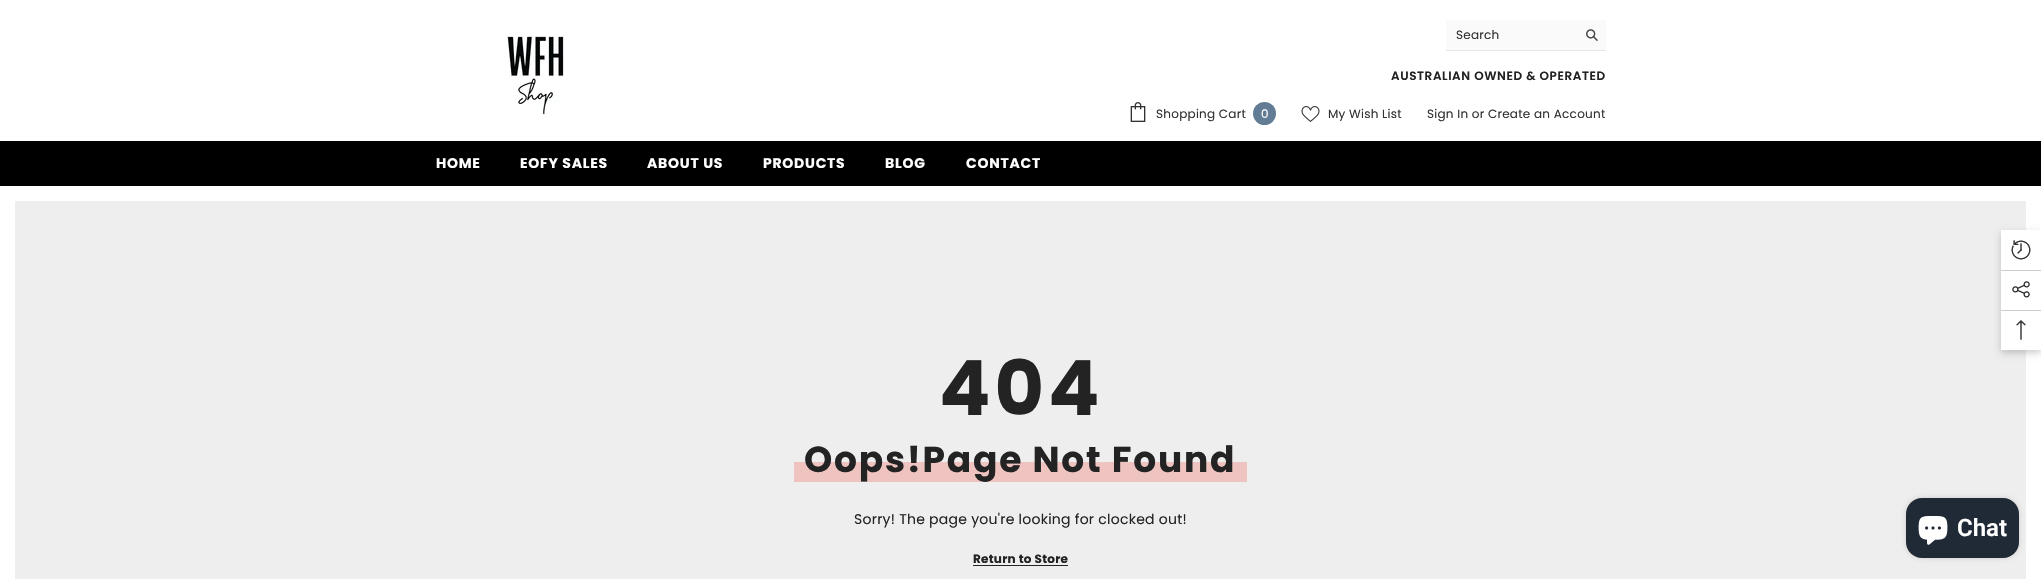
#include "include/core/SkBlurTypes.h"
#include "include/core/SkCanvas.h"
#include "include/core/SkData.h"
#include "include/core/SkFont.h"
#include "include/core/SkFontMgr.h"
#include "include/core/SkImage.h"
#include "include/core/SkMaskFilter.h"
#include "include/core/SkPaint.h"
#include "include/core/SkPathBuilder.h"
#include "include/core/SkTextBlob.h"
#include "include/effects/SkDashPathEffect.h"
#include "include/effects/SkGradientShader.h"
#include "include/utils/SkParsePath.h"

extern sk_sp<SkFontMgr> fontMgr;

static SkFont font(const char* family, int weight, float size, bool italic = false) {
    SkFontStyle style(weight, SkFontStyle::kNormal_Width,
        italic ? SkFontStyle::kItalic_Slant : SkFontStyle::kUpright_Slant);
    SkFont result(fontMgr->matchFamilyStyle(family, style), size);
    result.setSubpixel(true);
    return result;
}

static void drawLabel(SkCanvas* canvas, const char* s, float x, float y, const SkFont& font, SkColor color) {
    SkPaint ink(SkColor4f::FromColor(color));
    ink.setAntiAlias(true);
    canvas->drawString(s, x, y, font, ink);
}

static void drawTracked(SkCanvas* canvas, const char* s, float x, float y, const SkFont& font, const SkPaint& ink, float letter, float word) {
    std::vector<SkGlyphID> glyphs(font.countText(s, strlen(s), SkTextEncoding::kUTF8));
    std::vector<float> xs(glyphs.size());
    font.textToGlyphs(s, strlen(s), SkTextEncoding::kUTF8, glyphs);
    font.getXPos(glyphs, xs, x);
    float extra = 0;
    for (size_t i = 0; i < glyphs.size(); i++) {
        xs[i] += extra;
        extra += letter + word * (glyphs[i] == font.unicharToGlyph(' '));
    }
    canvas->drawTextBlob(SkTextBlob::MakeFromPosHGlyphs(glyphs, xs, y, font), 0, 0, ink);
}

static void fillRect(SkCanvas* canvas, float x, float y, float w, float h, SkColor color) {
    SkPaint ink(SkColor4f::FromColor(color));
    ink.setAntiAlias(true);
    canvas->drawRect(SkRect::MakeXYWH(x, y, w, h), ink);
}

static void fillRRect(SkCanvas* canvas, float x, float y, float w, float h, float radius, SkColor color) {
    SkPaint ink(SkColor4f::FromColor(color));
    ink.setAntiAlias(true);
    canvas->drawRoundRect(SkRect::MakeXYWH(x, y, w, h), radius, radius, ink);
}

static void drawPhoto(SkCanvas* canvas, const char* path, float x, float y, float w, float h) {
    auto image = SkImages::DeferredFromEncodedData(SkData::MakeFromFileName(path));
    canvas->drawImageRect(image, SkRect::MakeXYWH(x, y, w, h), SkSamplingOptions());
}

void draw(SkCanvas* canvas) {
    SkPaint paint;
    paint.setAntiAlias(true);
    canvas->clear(0xFFFFFFFF);
    drawPhoto(canvas, "assets/img1.png", 507, 35, 57, 80);
    fillRect(canvas, 1446, 20, 160, 30, 0xFFFAFAFA);
    fillRect(canvas, 1446, 50, 160, 1, 0xFFE7E7E7);
    SkFont font1 = font("Poppins", 400, 12);
    paint.setColor(0xFF323232);
    drawTracked(canvas, "Search", 1456, 39, font1, paint, 0.25f, 0);
    drawPhoto(canvas, "assets/img2.png", 1586, 29, 12, 12);
    SkFont font2 = font("Poppins", 600, 12);
    paint.setColor(0xFF232323);
    drawTracked(canvas, "AUSTRALIAN OWNED & OPERATED", 1391, 80, font2, paint, 0.6f, 0);
    drawPhoto(canvas, "assets/img3.png", 1130, 102, 16, 20);
    paint.setColor(0xFF323232);
    drawTracked(canvas, "Shopping Cart", 1156, 118, font1, paint, 0.25f, 0);
    paint.setColor(0xFF617C94);
    canvas->drawCircle(1264.5f, 113.5f, 11.5f, paint);
    paint.setColor(0xFFFFFFFF);
    drawTracked(canvas, "0", 1261, 118, font1, paint, 0.25f, 0);
    drawPhoto(canvas, "assets/img4.png", 1301, 106, 19, 16);
    paint.setColor(0xFF323232);
    drawTracked(canvas, "My Wish List", 1328, 118, font1, paint, 0.25f, 0);
    drawTracked(canvas, "Sign In or Create an Account", 1427, 118, font1, paint, 0.25f, 0);
    fillRect(canvas, 0, 141, 2041, 45, 0xFF000000);
    SkFont font3 = font("Poppins", 700, 14);
    paint.setColor(0xFFFFFFFF);
    drawTracked(canvas, "HOME", 436, 168, font3, paint, 0.75f, 0);
    drawTracked(canvas, "EOFY SALES", 520, 168, font3, paint, 0.75f, 0);
    drawTracked(canvas, "ABOUT US", 647, 168, font3, paint, 0.75f, 0);
    drawTracked(canvas, "PRODUCTS", 763, 168, font3, paint, 0.75f, 0);
    drawTracked(canvas, "BLOG", 885, 168, font3, paint, 0.75f, 0);
    drawTracked(canvas, "CONTACT", 966, 168, font3, paint, 0.75f, 0);
    fillRect(canvas, 15, 201, 2011, 378, 0xFFEEEEEE);
    SkFont font4 = font("Poppins", 700, 76);
    paint.setColor(0xFF232323);
    drawTracked(canvas, "404", 939, 415, font4, paint, 4, 0);
    fillRect(canvas, 794, 462, 453, 20, 0xFFEFC3C0);
    SkFont font5 = font("Poppins", 700, 36);
    drawTracked(canvas, "Oops!Page Not Found", 804, 472, font5, paint, 1.75f, 0);
    SkFont font6 = font("Poppins", 400, 14);
    drawTracked(canvas, "Sorry! The page you're looking for clocked out!", 854, 524, font6, paint, 0.25f, 0);
    SkFont font7 = font("Poppins", 700, 12);
    drawTracked(canvas, "Return to Store", 973, 563, font7, paint, 0.25f, 0);
    fillRect(canvas, 973, 565, 95, 1, 0xFF232323);
    paint.setColor(0x33000000);
    paint.setMaskFilter(SkMaskFilter::MakeBlur(kNormal_SkBlurStyle, 3.5f));
    canvas->drawRect(SkRect::MakeXYWH(2001, 233, 40, 120), paint);
    paint.setMaskFilter(nullptr);
    fillRect(canvas, 2001, 230, 40, 120, 0xFFFFFFFF);
    drawPhoto(canvas, "assets/img5.png", 2011, 240, 20, 20);
    fillRect(canvas, 2001, 270, 40, 1, 0xFFCCCCCC);
    drawPhoto(canvas, "assets/img6.png", 2012, 281, 18, 17);
    fillRect(canvas, 2001, 310, 40, 1, 0xFFCCCCCC);
    drawPhoto(canvas, "assets/img7.png", 2016, 320, 10, 20);
    paint.setColor(0x26000000);
    paint.setMaskFilter(SkMaskFilter::MakeBlur(kNormal_SkBlurStyle, 2.5f));
    canvas->drawRoundRect(SkRect::MakeXYWH(1906, 498, 113, 60), 16, 16, paint);
    paint.setMaskFilter(nullptr);
    fillRRect(canvas, 1906, 498, 113, 60, 16, 0xFF202A36);
    drawPhoto(canvas, "assets/img8.png", 1918, 516, 30, 29);
    SkFont font8 = font("Roboto", 600, 24);
    drawLabel(canvas, "Chat", 1957, 536, font8, 0xFFFFFFFF);
}
